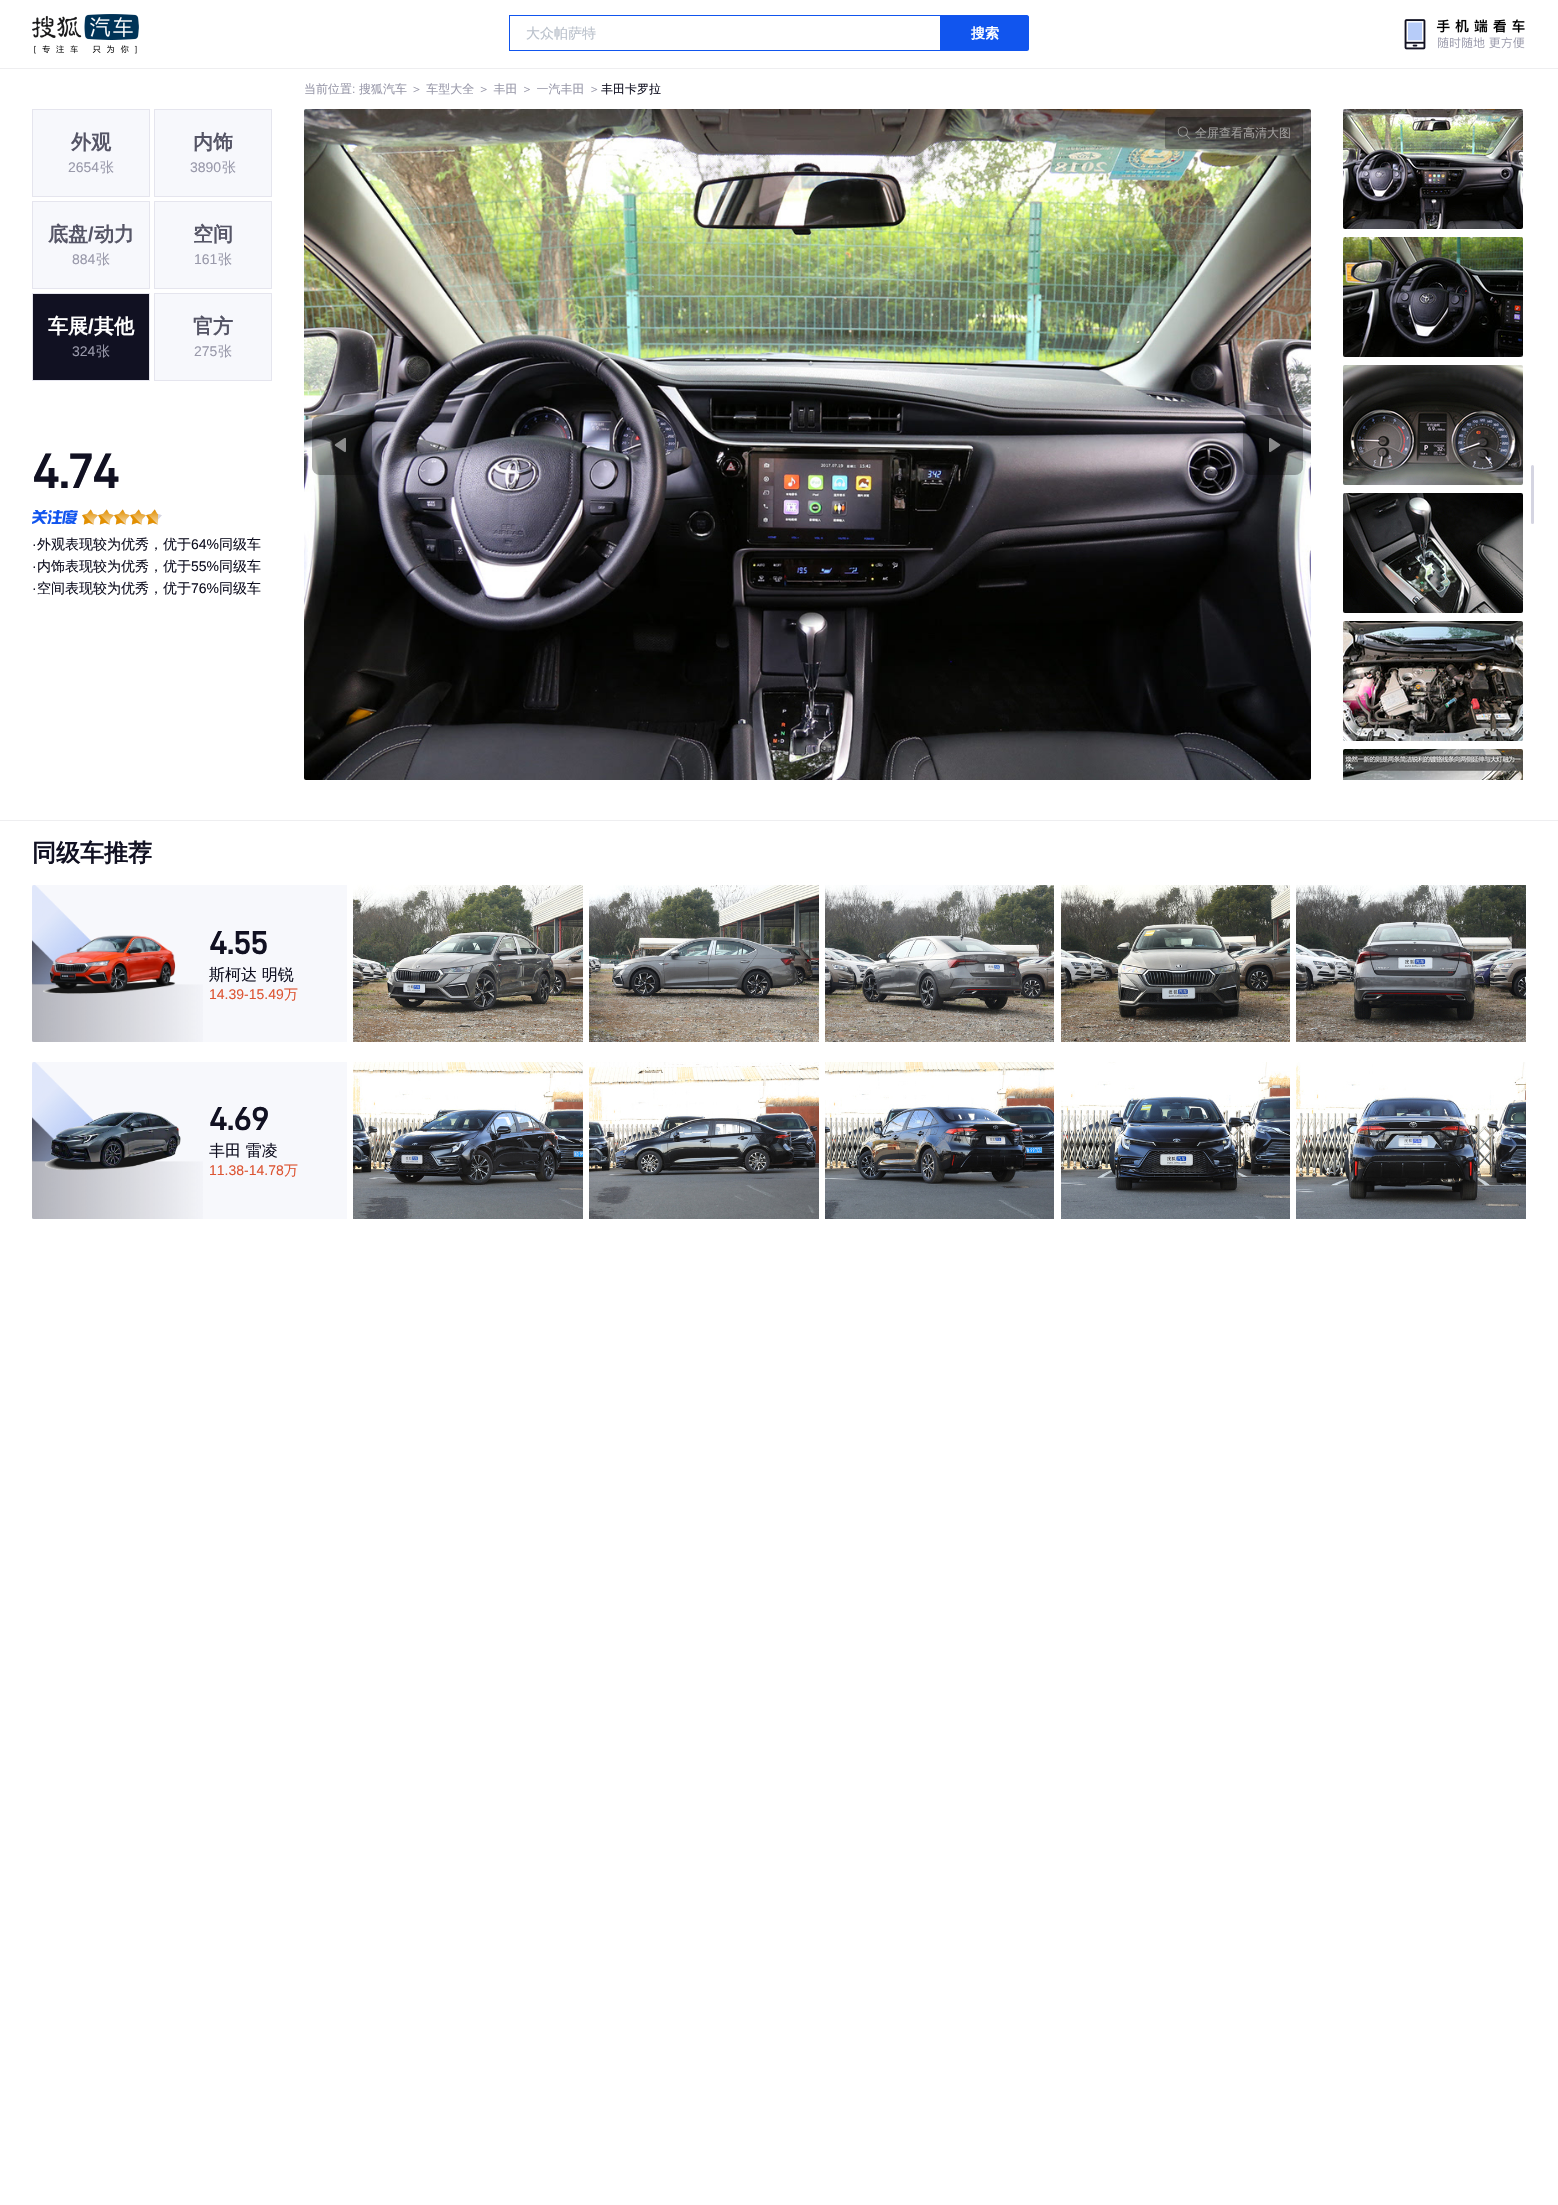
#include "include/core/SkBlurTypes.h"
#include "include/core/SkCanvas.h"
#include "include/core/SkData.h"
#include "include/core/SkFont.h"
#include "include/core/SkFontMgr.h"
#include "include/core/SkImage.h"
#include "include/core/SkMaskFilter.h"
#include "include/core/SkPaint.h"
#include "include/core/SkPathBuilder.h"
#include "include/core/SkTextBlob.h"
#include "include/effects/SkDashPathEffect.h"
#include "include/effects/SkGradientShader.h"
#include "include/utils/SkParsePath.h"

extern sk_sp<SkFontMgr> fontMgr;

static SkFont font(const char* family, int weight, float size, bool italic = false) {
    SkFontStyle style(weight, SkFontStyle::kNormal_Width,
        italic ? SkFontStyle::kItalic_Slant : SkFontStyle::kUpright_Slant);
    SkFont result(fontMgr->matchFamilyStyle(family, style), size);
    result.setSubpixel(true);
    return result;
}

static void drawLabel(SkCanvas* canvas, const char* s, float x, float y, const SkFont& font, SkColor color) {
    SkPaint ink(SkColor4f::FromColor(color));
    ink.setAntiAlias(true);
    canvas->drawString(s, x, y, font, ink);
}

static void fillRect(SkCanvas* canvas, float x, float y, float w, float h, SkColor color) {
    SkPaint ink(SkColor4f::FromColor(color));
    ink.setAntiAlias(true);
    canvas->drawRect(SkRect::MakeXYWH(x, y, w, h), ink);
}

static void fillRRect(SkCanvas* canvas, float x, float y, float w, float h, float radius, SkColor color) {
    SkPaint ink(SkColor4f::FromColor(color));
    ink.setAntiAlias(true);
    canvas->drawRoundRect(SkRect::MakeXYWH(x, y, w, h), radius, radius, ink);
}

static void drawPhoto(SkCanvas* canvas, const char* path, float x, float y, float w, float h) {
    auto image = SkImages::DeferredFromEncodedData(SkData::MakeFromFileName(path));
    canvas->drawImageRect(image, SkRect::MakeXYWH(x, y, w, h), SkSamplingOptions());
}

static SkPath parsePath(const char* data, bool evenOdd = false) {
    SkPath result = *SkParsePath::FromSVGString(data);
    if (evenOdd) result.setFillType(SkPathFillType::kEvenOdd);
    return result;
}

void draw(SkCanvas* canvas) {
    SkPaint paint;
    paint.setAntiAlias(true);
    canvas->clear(0xFFFFFFFF);
    fillRect(canvas, 0, 68, 1558, 1, 0xFFEEEEF0);
    drawPhoto(canvas, "assets/img1.png", 32, 14, 107, 40);
    paint.setStroke(true);
    paint.setStrokeWidth(1);
    paint.setColor(0xFF1155EE);
    canvas->drawRect(SkRect::MakeXYWH(509.5f, 15.5f, 431, 35), paint);
    SkFont font1 = font("WenQuanYi Zen Hei", 500, 14);
    drawLabel(canvas, "大众帕萨特", 526, 38, font1, 0xFFBBC2CC);
    paint.setStroke(false);
    canvas->drawPath(parsePath("M941 15H1027C1028 15 1029 16 1029 17V49C1029 50 1028 51 1027 51H941Z"), paint);
    SkFont font2 = font("WenQuanYi Zen Hei", 700, 14);
    drawLabel(canvas, "搜索", 971, 38, font2, 0xFFFFFFFF);
    drawPhoto(canvas, "assets/img2.png", 1404, 19, 121, 31);
    SkFont font3 = font("WenQuanYi Zen Hei", 500, 12);
    drawLabel(canvas, "当前位置", 304, 93, font3, 0xFF9999AA);
    SkFont font4 = font("Liberation Sans", 400, 12);
    drawLabel(canvas, ":", 352, 93, font4, 0xFF9999AA);
    drawLabel(canvas, "搜狐汽车 ＞ 车型大全 ＞ 丰田 ＞ 一汽丰田 ＞", 359, 93, font3, 0xFF9999AA);
    drawLabel(canvas, "丰田卡罗拉", 601, 93, font3, 0xFF111122);
    paint.setColor(0xFFF7F8FC);
    canvas->drawRect(SkRect::MakeXYWH(32.5f, 109.5f, 117, 87), paint);
    paint.setStroke(true);
    paint.setColor(0xFFE5E5EE);
    canvas->drawRect(SkRect::MakeXYWH(32.5f, 109.5f, 117, 87), paint);
    SkFont font5 = font("WenQuanYi Zen Hei", 700, 20);
    drawLabel(canvas, "外观", 71, 149, font5, 0xFF555566);
    SkFont font6 = font("Liberation Sans", 400, 14);
    drawLabel(canvas, "2654", 68, 172, font6, 0xFF9999AA);
    drawLabel(canvas, "张", 100, 172, font1, 0xFF9999AA);
    paint.setStroke(false);
    paint.setColor(0xFFF7F8FC);
    canvas->drawRect(SkRect::MakeXYWH(154.5f, 109.5f, 117, 87), paint);
    paint.setStroke(true);
    paint.setColor(0xFFE5E5EE);
    canvas->drawRect(SkRect::MakeXYWH(154.5f, 109.5f, 117, 87), paint);
    drawLabel(canvas, "内饰", 193, 149, font5, 0xFF555566);
    drawLabel(canvas, "3890", 190, 172, font6, 0xFF9999AA);
    drawLabel(canvas, "张", 222, 172, font1, 0xFF9999AA);
    paint.setStroke(false);
    paint.setColor(0xFFF7F8FC);
    canvas->drawRect(SkRect::MakeXYWH(32.5f, 201.5f, 117, 87), paint);
    paint.setStroke(true);
    paint.setColor(0xFFE5E5EE);
    canvas->drawRect(SkRect::MakeXYWH(32.5f, 201.5f, 117, 87), paint);
    drawLabel(canvas, "底盘", 48, 241, font5, 0xFF555566);
    SkFont font7 = font("Liberation Sans", 700, 20);
    drawLabel(canvas, "/", 88, 241, font7, 0xFF555566);
    drawLabel(canvas, "动力", 94, 241, font5, 0xFF555566);
    drawLabel(canvas, "884", 72, 264, font6, 0xFF9999AA);
    drawLabel(canvas, "张", 96, 264, font1, 0xFF9999AA);
    paint.setStroke(false);
    paint.setColor(0xFFF7F8FC);
    canvas->drawRect(SkRect::MakeXYWH(154.5f, 201.5f, 117, 87), paint);
    paint.setStroke(true);
    paint.setColor(0xFFE5E5EE);
    canvas->drawRect(SkRect::MakeXYWH(154.5f, 201.5f, 117, 87), paint);
    drawLabel(canvas, "空间", 193, 241, font5, 0xFF555566);
    drawLabel(canvas, "161", 194, 264, font6, 0xFF9999AA);
    drawLabel(canvas, "张", 218, 264, font1, 0xFF9999AA);
    paint.setStroke(false);
    paint.setColor(0xFF111122);
    canvas->drawRect(SkRect::MakeXYWH(32.5f, 293.5f, 117, 87), paint);
    paint.setStroke(true);
    paint.setColor(0xFFE5E5EE);
    canvas->drawRect(SkRect::MakeXYWH(32.5f, 293.5f, 117, 87), paint);
    drawLabel(canvas, "车展", 48, 333, font5, 0xFFFFFFFF);
    drawLabel(canvas, "/", 88, 333, font7, 0xFFFFFFFF);
    drawLabel(canvas, "其他", 94, 333, font5, 0xFFFFFFFF);
    drawLabel(canvas, "324", 72, 356, font6, 0xFF9999AA);
    drawLabel(canvas, "张", 96, 356, font1, 0xFF9999AA);
    paint.setStroke(false);
    paint.setColor(0xFFF7F8FC);
    canvas->drawRect(SkRect::MakeXYWH(154.5f, 293.5f, 117, 87), paint);
    paint.setStroke(true);
    paint.setColor(0xFFE5E5EE);
    canvas->drawRect(SkRect::MakeXYWH(154.5f, 293.5f, 117, 87), paint);
    drawLabel(canvas, "官方", 193, 333, font5, 0xFF555566);
    drawLabel(canvas, "275", 194, 356, font6, 0xFF9999AA);
    drawLabel(canvas, "张", 218, 356, font1, 0xFF9999AA);
    SkFont font8 = font("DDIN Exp", 700, 48);
    drawLabel(canvas, "4.74", 32, 488, font8, 0xFF111122);
    drawPhoto(canvas, "assets/img3.png", 32, 510, 46, 14);
    drawPhoto(canvas, "assets/img4.png", 82, 509, 16, 16);
    drawPhoto(canvas, "assets/img5.png", 82, 509, 16, 16);
    drawPhoto(canvas, "assets/img4.png", 98, 509, 16, 16);
    drawPhoto(canvas, "assets/img5.png", 98, 509, 16, 16);
    drawPhoto(canvas, "assets/img4.png", 114, 509, 16, 16);
    drawPhoto(canvas, "assets/img5.png", 114, 509, 16, 16);
    drawPhoto(canvas, "assets/img4.png", 130, 509, 16, 16);
    drawPhoto(canvas, "assets/img5.png", 130, 509, 16, 16);
    drawPhoto(canvas, "assets/img4.png", 146, 509, 16, 16);
    drawPhoto(canvas, "assets/img6.png", 146, 509, 12, 16);
    drawLabel(canvas, "·", 32, 549, font6, 0xFF111122);
    drawLabel(canvas, "外观表现较为优秀，优于", 37, 549, font1, 0xFF111122);
    drawLabel(canvas, "64%", 191, 549, font6, 0xFF111122);
    drawLabel(canvas, "同级车", 219, 549, font1, 0xFF111122);
    drawLabel(canvas, "·", 32, 571, font6, 0xFF111122);
    drawLabel(canvas, "内饰表现较为优秀，优于", 37, 571, font1, 0xFF111122);
    drawLabel(canvas, "55%", 191, 571, font6, 0xFF111122);
    drawLabel(canvas, "同级车", 219, 571, font1, 0xFF111122);
    drawLabel(canvas, "·", 32, 593, font6, 0xFF111122);
    drawLabel(canvas, "空间表现较为优秀，优于", 37, 593, font1, 0xFF111122);
    drawLabel(canvas, "76%", 191, 593, font6, 0xFF111122);
    drawLabel(canvas, "同级车", 219, 593, font1, 0xFF111122);
    drawPhoto(canvas, "assets/img7.png", 304, 109, 1007, 671);
    fillRRect(canvas, 1165, 117, 138, 32, 2, 0x4D000000);
    drawPhoto(canvas, "assets/img8.png", 1177, 126, 13, 13);
    drawLabel(canvas, "全屏查看高清大图", 1195, 137, font3, 0xFFA09E9D);
    fillRRect(canvas, 312, 415, 60, 60, 8, 0x4D000000);
    drawPhoto(canvas, "assets/img9.png", 334, 437, 12, 16);
    fillRRect(canvas, 1243, 415, 60, 60, 8, 0x4D000000);
    drawPhoto(canvas, "assets/img10.png", 1269, 437, 12, 16);
    drawPhoto(canvas, "assets/img11.png", 1343, 109, 180, 120);
    drawPhoto(canvas, "assets/img12.png", 1343, 237, 180, 120);
    drawPhoto(canvas, "assets/img13.png", 1343, 365, 180, 120);
    drawPhoto(canvas, "assets/img14.png", 1343, 493, 180, 120);
    drawPhoto(canvas, "assets/img15.png", 1343, 621, 180, 120);
    drawPhoto(canvas, "assets/img16.png", 1343, 749, 180, 31);
    fillRRect(canvas, 1531, 465, 3, 59, 1.5f, 0xFFD5D5E2);
    fillRect(canvas, 0, 820, 1558, 1, 0xFFEEEEF0);
    SkFont font9 = font("WenQuanYi Zen Hei", 700, 24);
    drawLabel(canvas, "同级车推荐", 32, 861, font9, 0xFF111122);
    fillRect(canvas, 32, 885, 315, 157, 0xFFF7F8FC);
    drawPhoto(canvas, "assets/img17.png", 32, 885, 171, 157);
    drawPhoto(canvas, "assets/img18.png", 43, 935, 133, 59);
    SkFont font10 = font("DDIN Exp", 700, 32);
    drawLabel(canvas, "4.55", 209, 954, font10, 0xFF111122);
    SkFont font11 = font("WenQuanYi Zen Hei", 500, 16);
    drawLabel(canvas, "斯柯达 明锐", 209, 980, font11, 0xFF111122);
    drawLabel(canvas, "14.39-15.49", 209, 999, font6, 0xFFDD5533);
    drawLabel(canvas, "万", 284, 999, font1, 0xFFDD5533);
    drawPhoto(canvas, "assets/img19.png", 353, 885, 230, 157);
    drawPhoto(canvas, "assets/img20.png", 589, 885, 230, 157);
    drawPhoto(canvas, "assets/img21.png", 825, 885, 229, 157);
    drawPhoto(canvas, "assets/img22.png", 1061, 885, 229, 157);
    drawPhoto(canvas, "assets/img23.png", 1296, 885, 230, 157);
    fillRect(canvas, 32, 1062, 315, 157, 0xFFF7F8FC);
    drawPhoto(canvas, "assets/img17.png", 32, 1062, 171, 157);
    drawPhoto(canvas, "assets/img24.png", 45, 1111, 136, 60);
    drawLabel(canvas, "4.69", 209, 1130, font10, 0xFF111122);
    drawLabel(canvas, "丰田 雷凌", 209, 1156, font11, 0xFF111122);
    drawLabel(canvas, "11.38-14.78", 209, 1175, font6, 0xFFDD5533);
    drawLabel(canvas, "万", 284, 1175, font1, 0xFFDD5533);
    drawPhoto(canvas, "assets/img25.png", 353, 1062, 230, 157);
    drawPhoto(canvas, "assets/img26.png", 589, 1062, 230, 157);
    drawPhoto(canvas, "assets/img27.png", 825, 1062, 229, 157);
    drawPhoto(canvas, "assets/img28.png", 1061, 1062, 229, 157);
    drawPhoto(canvas, "assets/img29.png", 1296, 1062, 230, 157);
}
